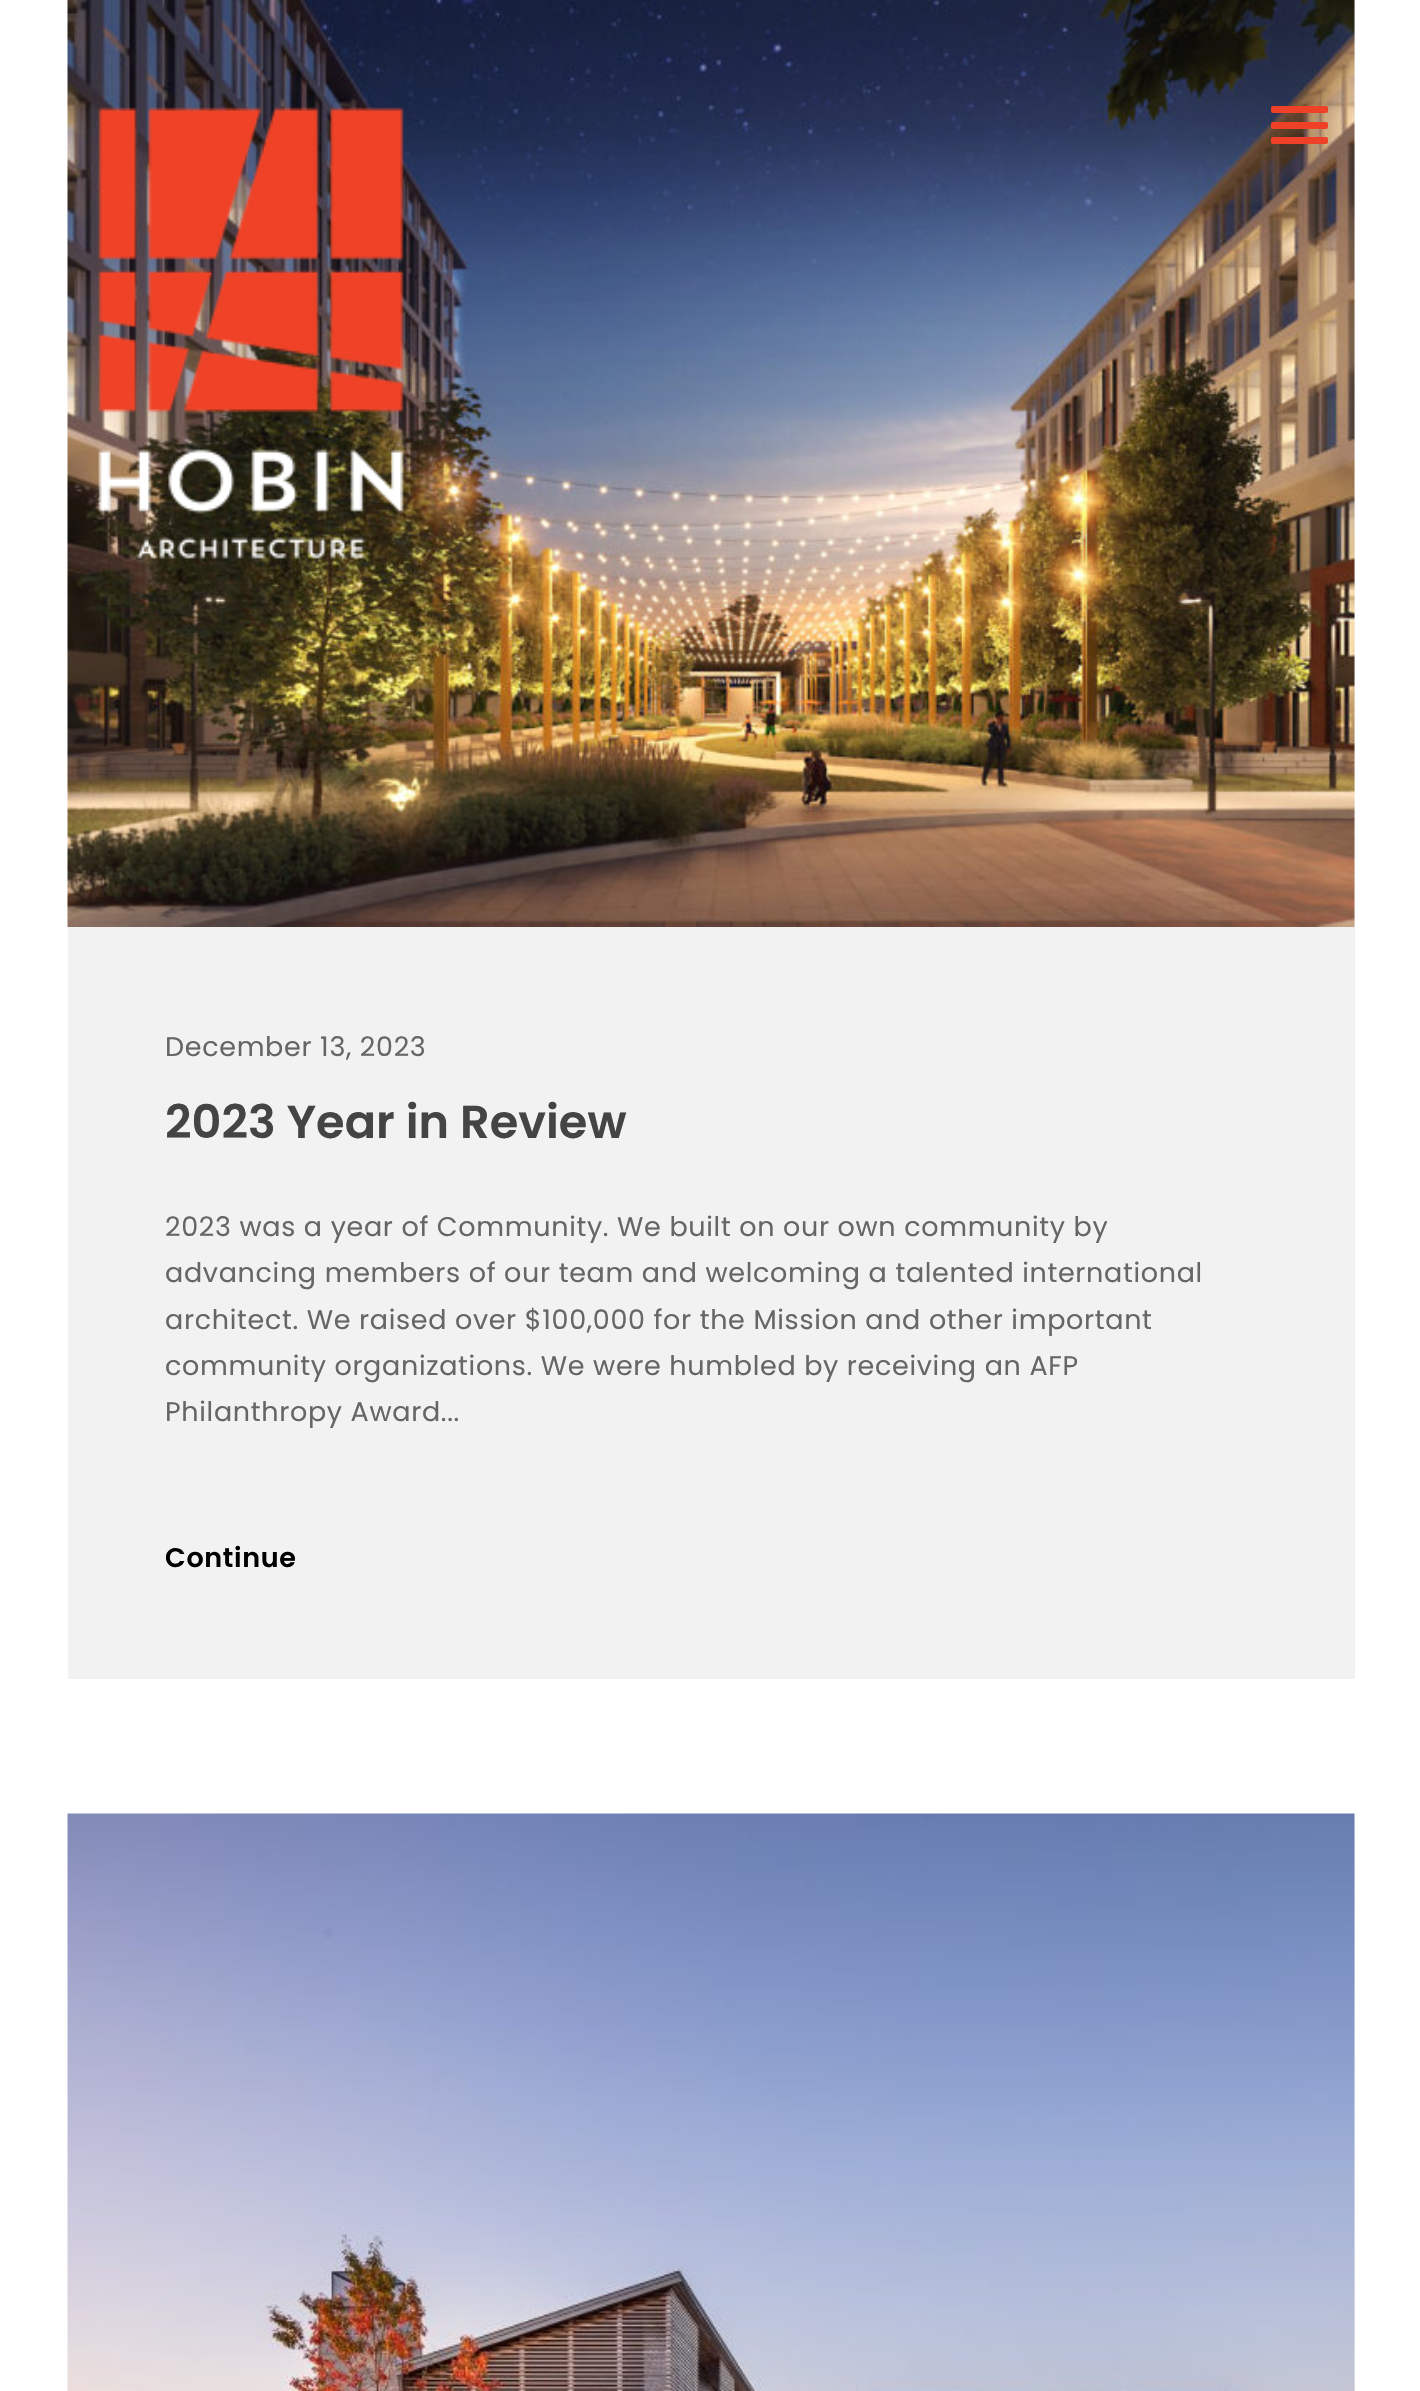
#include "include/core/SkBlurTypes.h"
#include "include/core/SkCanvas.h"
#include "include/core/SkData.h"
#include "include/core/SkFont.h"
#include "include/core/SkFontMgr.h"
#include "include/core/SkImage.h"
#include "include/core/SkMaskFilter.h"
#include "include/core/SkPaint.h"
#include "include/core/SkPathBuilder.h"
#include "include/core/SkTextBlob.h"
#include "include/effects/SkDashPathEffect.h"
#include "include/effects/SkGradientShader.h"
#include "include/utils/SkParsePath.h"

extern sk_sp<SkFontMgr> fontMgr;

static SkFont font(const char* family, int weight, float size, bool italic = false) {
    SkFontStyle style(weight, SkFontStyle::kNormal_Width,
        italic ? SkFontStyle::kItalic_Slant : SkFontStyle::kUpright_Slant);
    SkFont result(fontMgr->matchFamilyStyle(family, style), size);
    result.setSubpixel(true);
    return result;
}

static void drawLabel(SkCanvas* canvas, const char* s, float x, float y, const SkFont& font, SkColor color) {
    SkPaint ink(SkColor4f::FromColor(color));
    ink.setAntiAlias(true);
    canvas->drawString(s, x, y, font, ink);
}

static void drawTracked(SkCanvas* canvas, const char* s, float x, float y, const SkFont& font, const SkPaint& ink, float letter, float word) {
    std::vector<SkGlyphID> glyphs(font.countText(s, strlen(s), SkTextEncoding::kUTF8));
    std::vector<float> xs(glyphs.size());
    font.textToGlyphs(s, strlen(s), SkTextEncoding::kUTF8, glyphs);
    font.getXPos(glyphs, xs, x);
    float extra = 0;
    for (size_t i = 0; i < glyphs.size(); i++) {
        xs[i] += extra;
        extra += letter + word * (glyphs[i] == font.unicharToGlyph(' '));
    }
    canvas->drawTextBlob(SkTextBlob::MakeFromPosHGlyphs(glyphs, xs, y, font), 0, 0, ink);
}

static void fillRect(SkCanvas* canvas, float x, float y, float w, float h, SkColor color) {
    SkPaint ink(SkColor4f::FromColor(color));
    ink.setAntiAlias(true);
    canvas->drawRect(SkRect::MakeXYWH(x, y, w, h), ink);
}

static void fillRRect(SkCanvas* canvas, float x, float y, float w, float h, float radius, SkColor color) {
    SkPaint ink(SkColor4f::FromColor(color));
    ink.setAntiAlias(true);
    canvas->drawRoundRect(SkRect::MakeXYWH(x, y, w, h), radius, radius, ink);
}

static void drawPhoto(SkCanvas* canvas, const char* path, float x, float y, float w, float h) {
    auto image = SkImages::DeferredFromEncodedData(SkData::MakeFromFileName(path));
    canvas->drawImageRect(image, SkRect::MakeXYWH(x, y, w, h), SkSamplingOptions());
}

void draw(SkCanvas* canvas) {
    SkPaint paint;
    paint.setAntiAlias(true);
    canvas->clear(0xFFFFFFFF);
    fillRect(canvas, 68, 0, 1287, 1679, 0xFFF2F2F2);
    drawPhoto(canvas, "assets/img2.png", 67, 0, 1288, 927);
    drawPhoto(canvas, "assets/img1.png", 98, 107, 306, 452);
    fillRRect(canvas, 1271, 106, 57, 7, 2, 0xFFEF4128);
    fillRRect(canvas, 1271, 122, 57, 7, 2, 0xFFEF4128);
    fillRRect(canvas, 1271, 137, 57, 7, 2, 0xFFEF4128);
    SkFont font1 = font("Poppins", 400, 27);
    paint.setColor(0xFF666666);
    drawTracked(canvas, "December 13, 2023", 165, 1056, font1, paint, 0.67f, 0);
    SkFont font2 = font("Poppins", 600, 46.25f);
    drawLabel(canvas, "2023 Year in Review", 165, 1138, font2, 0xFF444444);
    drawTracked(canvas, "2023 was a year of Community. We built on our own community by", 165, 1236, font1, paint, 0.67f, 0);
    drawTracked(canvas, "advancing members of our team and welcoming a talented international", 165, 1282, font1, paint, 0.67f, 0);
    drawTracked(canvas, "architect. We raised over $100,000 for the Mission and other important", 165, 1329, font1, paint, 0.67f, 0);
    drawTracked(canvas, "community organizations. We were humbled by receiving an AFP", 165, 1375, font1, paint, 0.67f, 0);
    drawTracked(canvas, "Philanthropy Award...", 165, 1421, font1, paint, 0.67f, 0);
    SkFont font3 = font("Poppins", 600, 27);
    paint.setColor(0xFF000000);
    drawTracked(canvas, "Continue", 165, 1567, font3, paint, 0.67f, 0);
    fillRect(canvas, 1354, 1814, 1, 577, 0xFFF2F2F2);
    drawPhoto(canvas, "assets/img3.png", 67, 1813, 1288, 578);
}
